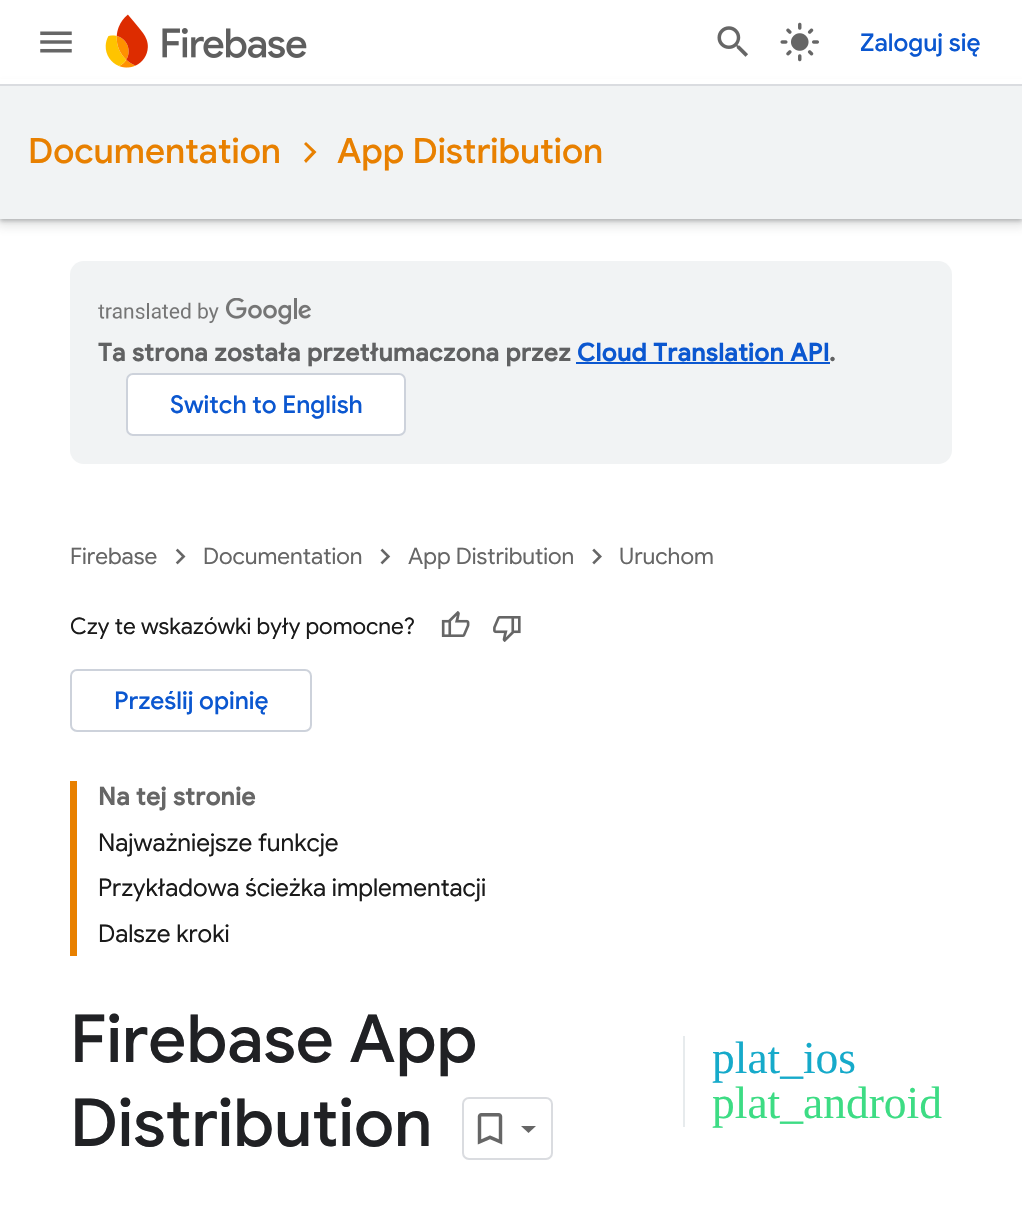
#include "include/core/SkBlurTypes.h"
#include "include/core/SkCanvas.h"
#include "include/core/SkData.h"
#include "include/core/SkFont.h"
#include "include/core/SkFontMgr.h"
#include "include/core/SkImage.h"
#include "include/core/SkMaskFilter.h"
#include "include/core/SkPaint.h"
#include "include/core/SkPathBuilder.h"
#include "include/core/SkTextBlob.h"
#include "include/effects/SkDashPathEffect.h"
#include "include/effects/SkGradientShader.h"
#include "include/utils/SkParsePath.h"

extern sk_sp<SkFontMgr> fontMgr;

static SkFont font(const char* family, int weight, float size, bool italic = false) {
    SkFontStyle style(weight, SkFontStyle::kNormal_Width,
        italic ? SkFontStyle::kItalic_Slant : SkFontStyle::kUpright_Slant);
    SkFont result(fontMgr->matchFamilyStyle(family, style), size);
    result.setSubpixel(true);
    return result;
}

static void drawLabel(SkCanvas* canvas, const char* s, float x, float y, const SkFont& font, SkColor color) {
    SkPaint ink(SkColor4f::FromColor(color));
    ink.setAntiAlias(true);
    canvas->drawString(s, x, y, font, ink);
}

static void drawTracked(SkCanvas* canvas, const char* s, float x, float y, const SkFont& font, const SkPaint& ink, float letter, float word) {
    std::vector<SkGlyphID> glyphs(font.countText(s, strlen(s), SkTextEncoding::kUTF8));
    std::vector<float> xs(glyphs.size());
    font.textToGlyphs(s, strlen(s), SkTextEncoding::kUTF8, glyphs);
    font.getXPos(glyphs, xs, x);
    float extra = 0;
    for (size_t i = 0; i < glyphs.size(); i++) {
        xs[i] += extra;
        extra += letter + word * (glyphs[i] == font.unicharToGlyph(' '));
    }
    canvas->drawTextBlob(SkTextBlob::MakeFromPosHGlyphs(glyphs, xs, y, font), 0, 0, ink);
}

static void fillRect(SkCanvas* canvas, float x, float y, float w, float h, SkColor color) {
    SkPaint ink(SkColor4f::FromColor(color));
    ink.setAntiAlias(true);
    canvas->drawRect(SkRect::MakeXYWH(x, y, w, h), ink);
}

static void fillRRect(SkCanvas* canvas, float x, float y, float w, float h, float radius, SkColor color) {
    SkPaint ink(SkColor4f::FromColor(color));
    ink.setAntiAlias(true);
    canvas->drawRoundRect(SkRect::MakeXYWH(x, y, w, h), radius, radius, ink);
}

static void drawPhoto(SkCanvas* canvas, const char* path, float x, float y, float w, float h) {
    auto image = SkImages::DeferredFromEncodedData(SkData::MakeFromFileName(path));
    canvas->drawImageRect(image, SkRect::MakeXYWH(x, y, w, h), SkSamplingOptions());
}

static SkPath parsePath(const char* data, bool evenOdd = false) {
    SkPath result = *SkParsePath::FromSVGString(data);
    if (evenOdd) result.setFillType(SkPathFillType::kEvenOdd);
    return result;
}

void draw(SkCanvas* canvas) {
    SkPaint paint;
    paint.setAntiAlias(true);
    canvas->clear(0xFFFFFFFF);
    paint.setColor(0x263C4043);
    paint.setMaskFilter(SkMaskFilter::MakeBlur(kNormal_SkBlurStyle, 5));
    canvas->drawRect(SkRect::MakeXYWH(-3, 86, 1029, 140), paint);
    paint.setMaskFilter(nullptr);
    paint.setColor(0x4D3C4043);
    paint.setMaskFilter(SkMaskFilter::MakeBlur(kNormal_SkBlurStyle, 2));
    canvas->drawRect(SkRect::MakeXYWH(0, 88, 1022, 133), paint);
    paint.setMaskFilter(nullptr);
    fillRect(canvas, 0, 79, 1022, 5, 0xFFFFFFFF);
    fillRect(canvas, 0, 84, 1022, 2, 0xFFDADCE0);
    drawPhoto(canvas, "assets/img1.png", 40, 31, 32, 22);
    drawPhoto(canvas, "assets/img2.png", 105, 14, 202, 54);
    drawPhoto(canvas, "assets/img3.png", 717, 26, 31, 31);
    drawPhoto(canvas, "assets/img4.png", 780, 22, 39, 40);
    SkFont font1 = font("Google Sans", 500, 24.5f);
    drawLabel(canvas, "Zaloguj się", 860, 51, font1, 0xFF0B57D0);
    fillRect(canvas, 0, 86, 1022, 133, 0xFFF1F3F4);
    SkFont font2 = font("Google Sans", 500, 35);
    drawLabel(canvas, "Documentation", 28, 163, font2, 0xFFE88000);
    paint.setColor(0xFFE88000);
    canvas->drawPath(parsePath("M306 142L316.5 152L306 163L304 160.5L312 152L304 144Z"), paint);
    drawLabel(canvas, "App Distribution", 337, 163, font2, 0xFFE88000);
    fillRRect(canvas, 70, 261, 882, 203, 14, 0xFFF1F3F4);
    drawPhoto(canvas, "assets/img5.png", 98, 298, 213, 27);
    SkFont font3 = font("Google Sans", 700, 24.5f);
    paint.setColor(0xFF606162);
    drawTracked(canvas, "Ta strona została przetłumaczona przez", 98, 361, font3, paint, 0.45f, 0);
    paint.setColor(0xFF0B57D0);
    drawTracked(canvas, "Cloud Translation API", 577, 361, font3, paint, 0.45f, 0);
    fillRect(canvas, 576, 362, 254, 2, 0xFF0B57D0);
    paint.setColor(0xFF606162);
    drawTracked(canvas, ".", 829, 361, font3, paint, 0.45f, 0);
    fillRRect(canvas, 126, 373, 280, 63, 7, 0xFFFFFFFF);
    paint.setStroke(true);
    paint.setStrokeWidth(2);
    paint.setColor(0x33041E49);
    canvas->drawRoundRect(SkRect::MakeXYWH(127, 374, 278, 61), 6, 6, paint);
    drawLabel(canvas, "Switch to English", 170, 413, font1, 0xFF0B57D0);
    SkFont font4 = font("Google Sans", 400, 22.75f);
    drawLabel(canvas, "Firebase", 70, 564, font4, 0xFF666666);
    drawPhoto(canvas, "assets/img6.png", 175, 548, 11, 17);
    drawLabel(canvas, "Documentation", 203, 564, font4, 0xFF666666);
    drawPhoto(canvas, "assets/img7.png", 380, 548, 11, 17);
    drawLabel(canvas, "App Distribution", 408, 564, font4, 0xFF666666);
    drawPhoto(canvas, "assets/img8.png", 592, 548, 10, 17);
    drawLabel(canvas, "Uruchom", 619, 564, font4, 0xFF666666);
    drawLabel(canvas, "Czy te wskazówki były pomocne?", 70, 634, font4, 0xFF1A1A1A);
    drawPhoto(canvas, "assets/img9.png", 441, 611, 29, 26);
    drawPhoto(canvas, "assets/img10.png", 493, 616, 28, 26);
    paint.setColor(0xFFCDD2DB);
    canvas->drawRoundRect(SkRect::MakeXYWH(71, 670, 240, 61), 6, 6, paint);
    drawLabel(canvas, "Prześlij opinię", 114, 709, font1, 0xFF0B57D0);
    fillRect(canvas, 70, 781, 7, 175, 0xFFE88000);
    paint.setStroke(false);
    paint.setColor(0xFF666666);
    drawTracked(canvas, "Na tej stronie", 98, 805, font3, paint, 0.45f, 0);
    SkFont font5 = font("Google Sans", 400, 24.5f);
    drawLabel(canvas, "Najważniejsze funkcje", 98, 851, font5, 0xFF1A1A1A);
    drawLabel(canvas, "Przykładowa ścieżka implementacji", 98, 896, font5, 0xFF1A1A1A);
    drawLabel(canvas, "Dalsze kroki", 98, 942, font5, 0xFF1A1A1A);
    SkFont font6 = font("Google Sans", 500, 66.5f);
    drawLabel(canvas, "Firebase App", 70, 1062, font6, 0xFF202124);
    drawLabel(canvas, "Distribution", 70, 1146, font6, 0xFF202124);
    paint.setStroke(true);
    paint.setColor(0xFFDADCE0);
    canvas->drawRoundRect(SkRect::MakeXYWH(463, 1098, 89, 61), 6, 6, paint);
    drawPhoto(canvas, "assets/img11.png", 477, 1113, 26, 32);
    paint.setStroke(false);
    paint.setColor(0xFF666666);
    canvas->drawPath(parsePath("M521 1126H536L528.5 1133Z"), paint);
    fillRect(canvas, 683, 1036, 2, 91, 0xFFE7EBED);
    SkFont font7 = font("Liberation Serif", 400, 45.5f);
    drawLabel(canvas, "plat_ios", 712, 1073, font7, 0xFF16AACA);
    drawLabel(canvas, "plat_android", 712, 1118, font7, 0xFF3DDC84);
}
